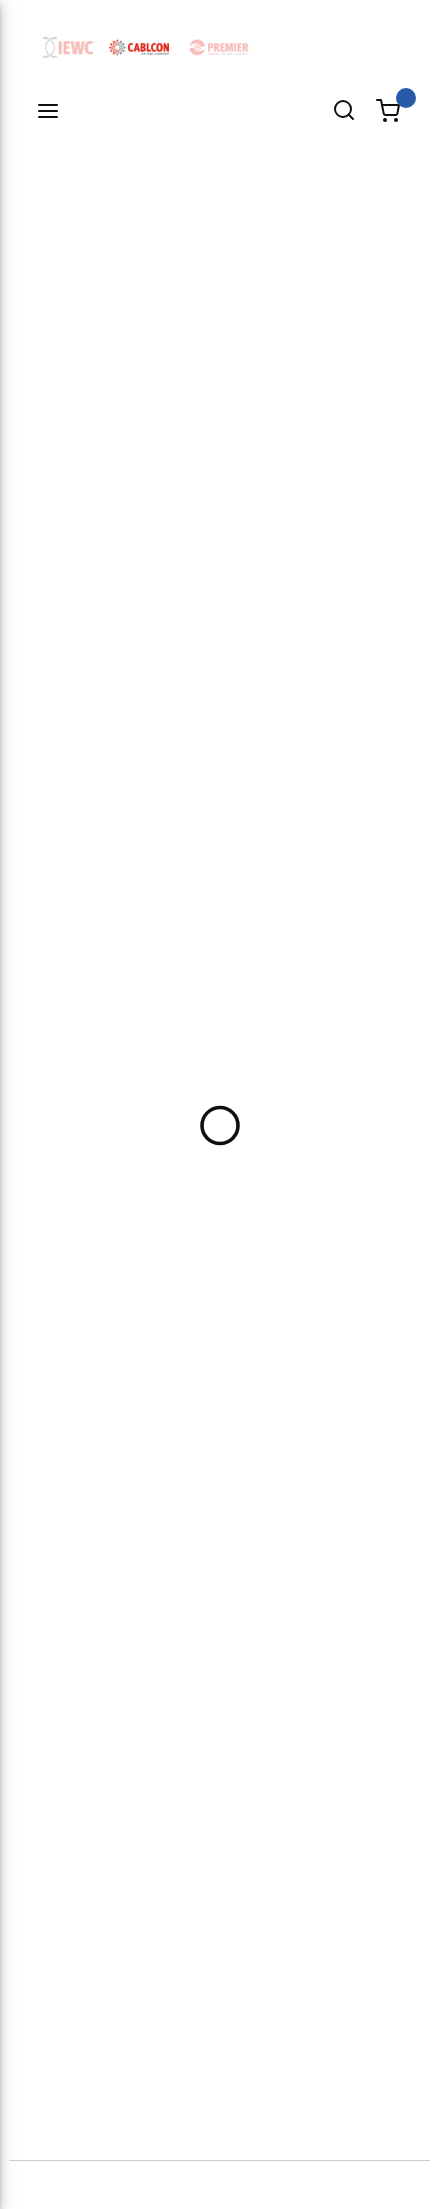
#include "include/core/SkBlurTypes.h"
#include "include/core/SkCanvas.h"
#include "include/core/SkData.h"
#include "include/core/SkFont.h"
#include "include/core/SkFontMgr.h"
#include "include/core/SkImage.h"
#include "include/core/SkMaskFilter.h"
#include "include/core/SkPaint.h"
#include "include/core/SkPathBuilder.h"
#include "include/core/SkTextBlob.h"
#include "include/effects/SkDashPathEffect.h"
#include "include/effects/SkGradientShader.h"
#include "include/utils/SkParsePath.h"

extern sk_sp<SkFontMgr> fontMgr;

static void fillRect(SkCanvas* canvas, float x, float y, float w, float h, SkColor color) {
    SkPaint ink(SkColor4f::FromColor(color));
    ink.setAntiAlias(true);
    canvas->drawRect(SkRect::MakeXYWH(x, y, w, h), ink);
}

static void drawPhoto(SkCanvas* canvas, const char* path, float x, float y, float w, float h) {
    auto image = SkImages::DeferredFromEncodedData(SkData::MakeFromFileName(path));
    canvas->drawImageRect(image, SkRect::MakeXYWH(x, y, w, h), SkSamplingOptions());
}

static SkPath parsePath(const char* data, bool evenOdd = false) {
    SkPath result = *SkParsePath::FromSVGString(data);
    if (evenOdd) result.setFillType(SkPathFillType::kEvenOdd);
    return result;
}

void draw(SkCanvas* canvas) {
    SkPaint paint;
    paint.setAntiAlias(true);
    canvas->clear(0xFFFFFFFF);
    fillRect(canvas, 9, 2160, 421, 1, 0xFFCCCCCC);
    paint.setColor(0x1F000000);
    paint.setMaskFilter(SkMaskFilter::MakeBlur(kNormal_SkBlurStyle, 9));
    canvas->drawRect(SkRect::MakeXYWH(-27, 1, 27, 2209), paint);
    paint.setMaskFilter(nullptr);
    paint.setColor(0x24000000);
    paint.setMaskFilter(SkMaskFilter::MakeBlur(kNormal_SkBlurStyle, 5));
    canvas->drawRect(SkRect::MakeXYWH(-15, 6, 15, 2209), paint);
    paint.setMaskFilter(nullptr);
    paint.setColor(0x33000000);
    paint.setMaskFilter(SkMaskFilter::MakeBlur(kNormal_SkBlurStyle, 2.5f));
    canvas->drawRect(SkRect::MakeXYWH(-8, 4, 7, 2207), paint);
    paint.setMaskFilter(nullptr);
    drawPhoto(canvas, "assets/img1.png", 43, 36, 52, 22);
    drawPhoto(canvas, "assets/img2.png", 109, 39, 60, 17);
    drawPhoto(canvas, "assets/img3.png", 189, 39, 60, 17);
    paint.setStroke(true);
    paint.setStrokeWidth(2);
    paint.setStrokeCap(SkPaint::kRound_Cap);
    paint.setStrokeJoin(SkPaint::kRound_Join);
    paint.setColor(0xFF0F0F0F);
    canvas->drawPath(parsePath("M39 111H57M39 105H57M39 117H57"), paint);
    paint.setStrokeCap(SkPaint::kButt_Cap);
    paint.setStrokeJoin(SkPaint::kMiter_Join);
    canvas->drawCircle(343, 109, 8, paint);
    paint.setStrokeCap(SkPaint::kRound_Cap);
    paint.setStrokeJoin(SkPaint::kRound_Join);
    canvas->drawPath(parsePath("M353 119L348.5 114.5"), paint);
    drawPhoto(canvas, "assets/img4.png", 376, 99, 24, 23);
    paint.setStroke(false);
    paint.setColor(0xFF275AA8);
    canvas->drawCircle(406, 98, 10, paint);
    paint.setStroke(true);
    paint.setStrokeWidth(3.6f);
    paint.setStrokeJoin(SkPaint::kMiter_Join);
    paint.setColor(0xFF0F0F0F);
    canvas->drawPath(parsePath("M220 1107.5C230 1107.5 238 1115.5 238 1125.5C238 1135.5 230 1143.5 220 1143.5C210 1143.5 202 1135.5 202 1125.5C202 1116 209.5 1108 219 1107.5"), paint);
}
